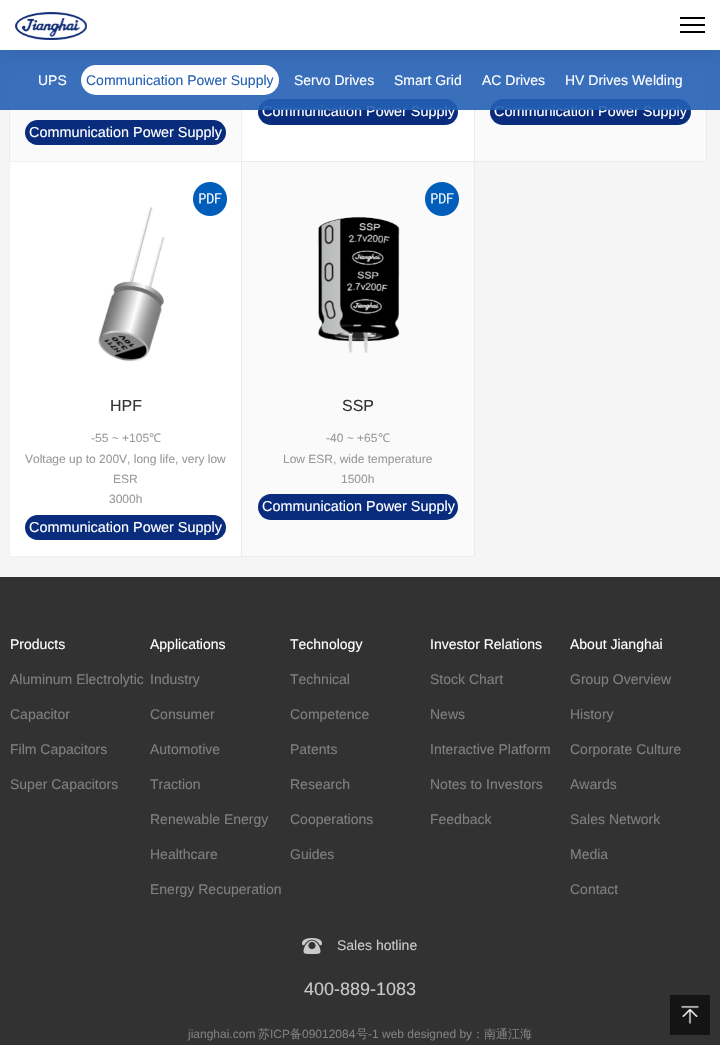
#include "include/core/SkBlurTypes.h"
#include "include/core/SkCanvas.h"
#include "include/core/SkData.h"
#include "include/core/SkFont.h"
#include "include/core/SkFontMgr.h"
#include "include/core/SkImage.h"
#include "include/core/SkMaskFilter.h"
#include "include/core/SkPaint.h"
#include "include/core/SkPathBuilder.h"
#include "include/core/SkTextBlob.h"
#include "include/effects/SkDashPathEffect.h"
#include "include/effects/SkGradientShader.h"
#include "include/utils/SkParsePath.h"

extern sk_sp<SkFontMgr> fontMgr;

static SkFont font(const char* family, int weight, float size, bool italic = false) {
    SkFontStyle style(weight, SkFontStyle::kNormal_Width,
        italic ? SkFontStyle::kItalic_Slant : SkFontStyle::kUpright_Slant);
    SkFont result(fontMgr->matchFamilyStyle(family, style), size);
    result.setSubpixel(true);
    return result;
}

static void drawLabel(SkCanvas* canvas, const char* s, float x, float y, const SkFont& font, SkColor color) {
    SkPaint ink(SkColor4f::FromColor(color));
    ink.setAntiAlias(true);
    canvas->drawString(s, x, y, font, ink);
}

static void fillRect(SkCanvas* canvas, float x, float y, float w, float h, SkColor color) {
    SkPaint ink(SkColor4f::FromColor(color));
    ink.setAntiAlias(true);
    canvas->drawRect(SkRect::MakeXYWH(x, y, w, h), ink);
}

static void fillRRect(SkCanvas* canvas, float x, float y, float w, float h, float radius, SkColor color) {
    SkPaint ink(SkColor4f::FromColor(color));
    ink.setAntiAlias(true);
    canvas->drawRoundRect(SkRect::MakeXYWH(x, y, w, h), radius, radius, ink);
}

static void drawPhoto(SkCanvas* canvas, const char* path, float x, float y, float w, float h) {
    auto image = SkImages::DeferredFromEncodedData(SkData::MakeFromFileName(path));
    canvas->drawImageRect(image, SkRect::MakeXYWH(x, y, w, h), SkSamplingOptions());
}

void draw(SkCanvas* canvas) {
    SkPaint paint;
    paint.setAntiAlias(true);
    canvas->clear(0xFF323232);
    fillRect(canvas, 0, 50, 720, 527, 0xFFF5F5F5);
    fillRect(canvas, 242, 50, 232, 111, 0xFFFFFFFF);
    fillRect(canvas, 10, 50, 231, 111, 0xFFFAFAFA);
    paint.setStroke(true);
    paint.setStrokeWidth(1);
    paint.setColor(0xFFEBEBEB);
    canvas->drawRect(SkRect::MakeXYWH(9.5f, -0.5f, 232, 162), paint);
    paint.setColor(0xFFF1F1F1);
    canvas->drawRect(SkRect::MakeXYWH(241.5f, -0.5f, 233, 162), paint);
    fillRRect(canvas, 258, 99, 200, 26, 13, 0xFF0A2C7D);
    SkFont font1 = font("Liberation Sans", 400, 14.4f);
    drawLabel(canvas, "Communication Power Supply", 262, 116, font1, 0xFFFFFFFF);
    fillRect(canvas, 475, 50, 231, 111, 0xFFFAFAFA);
    paint.setColor(0xFFEBEBEB);
    canvas->drawRect(SkRect::MakeXYWH(474.5f, -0.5f, 232, 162), paint);
    fillRRect(canvas, 490, 99, 201, 26, 13, 0xFF0A2C7D);
    drawLabel(canvas, "Communication Power Supply", 494, 116, font1, 0xFFFFFFFF);
    fillRect(canvas, 0, 50, 720, 60, 0xE6235FB4);
    fillRRect(canvas, 81, 65, 198, 30, 15, 0xFFFFFFFF);
    paint.setStroke(false);
    paint.setColor(0x1A000000);
    paint.setMaskFilter(SkMaskFilter::MakeBlur(kNormal_SkBlurStyle, 10));
    canvas->drawRect(SkRect::MakeXYWH(0, 2, 720, 50), paint);
    paint.setMaskFilter(nullptr);
    fillRect(canvas, 0, 0, 720, 50, 0xFFFFFFFF);
    drawPhoto(canvas, "assets/img1.png", 15, 12, 72, 28);
    fillRect(canvas, 680, 17, 25, 2, 0xFF000000);
    fillRect(canvas, 680, 24, 25, 2, 0xFF000000);
    fillRect(canvas, 680, 31, 25, 2, 0xFF000000);
    SkFont font2 = font("Liberation Sans", 400, 14);
    drawLabel(canvas, "UPS", 38, 85, font2, 0xFFFFFFFF);
    drawLabel(canvas, "Communication Power Supply", 86, 85, font2, 0xFF235FB4);
    drawLabel(canvas, "Servo Drives", 294, 85, font2, 0xFFFFFFFF);
    drawLabel(canvas, "Smart Grid", 394, 85, font2, 0xFFFFFFFF);
    drawLabel(canvas, "AC Drives", 482, 85, font2, 0xFFFFFFFF);
    drawLabel(canvas, "HV Drives Welding", 565, 85, font2, 0xFFFFFFFF);
    fillRRect(canvas, 25, 120, 201, 25, 12.5f, 0xFF0A2C7D);
    drawLabel(canvas, "Communication Power Supply", 29, 137, font1, 0xFFFFFFFF);
    paint.setColor(0xFFFFFFFF);
    canvas->drawRect(SkRect::MakeXYWH(9.5f, 161.5f, 232, 395), paint);
    paint.setStroke(true);
    paint.setColor(0xFFF1F1F1);
    canvas->drawRect(SkRect::MakeXYWH(9.5f, 161.5f, 232, 395), paint);
    drawPhoto(canvas, "assets/img2.png", 193, 182, 34, 34);
    drawPhoto(canvas, "assets/img3.png", 98, 207, 67, 155);
    SkFont font3 = font("Liberation Sans", 400, 16);
    drawLabel(canvas, "HPF", 110, 411, font3, 0xFF333333);
    SkFont font4 = font("Liberation Sans", 400, 12);
    drawLabel(canvas, "-55 ~ +105", 91, 442, font4, 0xFF999999);
    SkFont font5 = font("Noto Sans", 400, 12);
    drawLabel(canvas, "℃", 149, 442, font5, 0xFF999999);
    drawLabel(canvas, "Voltage up to 200V, long life, very low", 25, 463, font4, 0xFF999999);
    drawLabel(canvas, "ESR", 113, 483, font4, 0xFF999999);
    drawLabel(canvas, "3000h", 109, 503, font4, 0xFF999999);
    fillRRect(canvas, 25, 515, 201, 25, 12.5f, 0xFF0A2C7D);
    drawLabel(canvas, "Communication Power Supply", 29, 532, font1, 0xFFFFFFFF);
    paint.setStroke(false);
    paint.setColor(0xFFFAFAFA);
    canvas->drawRect(SkRect::MakeXYWH(241.5f, 161.5f, 233, 395), paint);
    paint.setStroke(true);
    paint.setColor(0xFFEBEBEB);
    canvas->drawRect(SkRect::MakeXYWH(241.5f, 161.5f, 233, 395), paint);
    drawPhoto(canvas, "assets/img4.png", 425, 182, 34, 34);
    drawPhoto(canvas, "assets/img5.png", 318, 216, 82, 137);
    drawLabel(canvas, "SSP", 342, 411, font3, 0xFF333333);
    drawLabel(canvas, "-40 ~ +65", 326, 442, font4, 0xFF999999);
    drawLabel(canvas, "℃", 378, 442, font5, 0xFF999999);
    drawLabel(canvas, "Low ESR, wide temperature", 283, 463, font4, 0xFF999999);
    drawLabel(canvas, "1500h", 341, 483, font4, 0xFF999999);
    fillRRect(canvas, 258, 494, 200, 26, 13, 0xFF0A2C7D);
    drawLabel(canvas, "Communication Power Supply", 262, 511, font1, 0xFFFFFFFF);
    drawLabel(canvas, "Products", 10, 649, font2, 0xFFFFFFFF);
    drawLabel(canvas, "Aluminum Electrolytic", 10, 684, font2, 0xFF808080);
    drawLabel(canvas, "Capacitor", 10, 719, font2, 0xFF808080);
    drawLabel(canvas, "Film Capacitors", 10, 754, font2, 0xFF808080);
    drawLabel(canvas, "Super Capacitors", 10, 789, font2, 0xFF808080);
    drawLabel(canvas, "Applications", 150, 649, font2, 0xFFFFFFFF);
    drawLabel(canvas, "Industry", 150, 684, font2, 0xFF808080);
    drawLabel(canvas, "Consumer", 150, 719, font2, 0xFF808080);
    drawLabel(canvas, "Automotive", 150, 754, font2, 0xFF808080);
    drawLabel(canvas, "Traction", 150, 789, font2, 0xFF808080);
    drawLabel(canvas, "Renewable Energy", 150, 824, font2, 0xFF808080);
    drawLabel(canvas, "Healthcare", 150, 859, font2, 0xFF808080);
    drawLabel(canvas, "Energy Recuperation", 150, 894, font2, 0xFF808080);
    drawLabel(canvas, "Technology", 290, 649, font2, 0xFFFFFFFF);
    drawLabel(canvas, "Technical", 290, 684, font2, 0xFF808080);
    drawLabel(canvas, "Competence", 290, 719, font2, 0xFF808080);
    drawLabel(canvas, "Patents", 290, 754, font2, 0xFF808080);
    drawLabel(canvas, "Research", 290, 789, font2, 0xFF808080);
    drawLabel(canvas, "Cooperations", 290, 824, font2, 0xFF808080);
    drawLabel(canvas, "Guides", 290, 859, font2, 0xFF808080);
    drawLabel(canvas, "Investor Relations", 430, 649, font2, 0xFFFFFFFF);
    drawLabel(canvas, "Stock Chart", 430, 684, font2, 0xFF808080);
    drawLabel(canvas, "News", 430, 719, font2, 0xFF808080);
    drawLabel(canvas, "Interactive Platform", 430, 754, font2, 0xFF808080);
    drawLabel(canvas, "Notes to Investors", 430, 789, font2, 0xFF808080);
    drawLabel(canvas, "Feedback", 430, 824, font2, 0xFF808080);
    drawLabel(canvas, "About Jianghai", 570, 649, font2, 0xFFFFFFFF);
    drawLabel(canvas, "Group Overview", 570, 684, font2, 0xFF808080);
    drawLabel(canvas, "History", 570, 719, font2, 0xFF808080);
    drawLabel(canvas, "Corporate Culture", 570, 754, font2, 0xFF808080);
    drawLabel(canvas, "Awards", 570, 789, font2, 0xFF808080);
    drawLabel(canvas, "Sales Network", 570, 824, font2, 0xFF808080);
    drawLabel(canvas, "Media", 570, 859, font2, 0xFF808080);
    drawLabel(canvas, "Contact", 570, 894, font2, 0xFF808080);
    drawPhoto(canvas, "assets/img6.png", 302, 938, 20, 16);
    drawLabel(canvas, "Sales hotline", 337, 950, font2, 0xFFC9C9C9);
    SkFont font6 = font("Liberation Sans", 400, 18);
    drawLabel(canvas, "400-889-1083", 304, 995, font6, 0xFFC9C9C9);
    drawLabel(canvas, "jianghai.com", 188, 1038, font4, 0xFF808080);
    SkFont font7 = font("WenQuanYi Zen Hei", 500, 12);
    drawLabel(canvas, "苏", 258, 1038, font7, 0xFF808080);
    drawLabel(canvas, "ICP", 270, 1038, font4, 0xFF808080);
    drawLabel(canvas, "备", 290, 1038, font7, 0xFF808080);
    drawLabel(canvas, "09012084", 302, 1038, font4, 0xFF808080);
    drawLabel(canvas, "号", 356, 1038, font7, 0xFF808080);
    drawLabel(canvas, "-1", 368, 1038, font4, 0xFF808080);
    drawLabel(canvas, "web designed by", 382, 1038, font4, 0xFF808080);
    drawLabel(canvas, "：南通江海", 472, 1038, font7, 0xFF808080);
    fillRect(canvas, 670, 995, 40, 40, 0xFF141414);
    drawPhoto(canvas, "assets/img7.png", 681, 1005, 18, 19);
}
